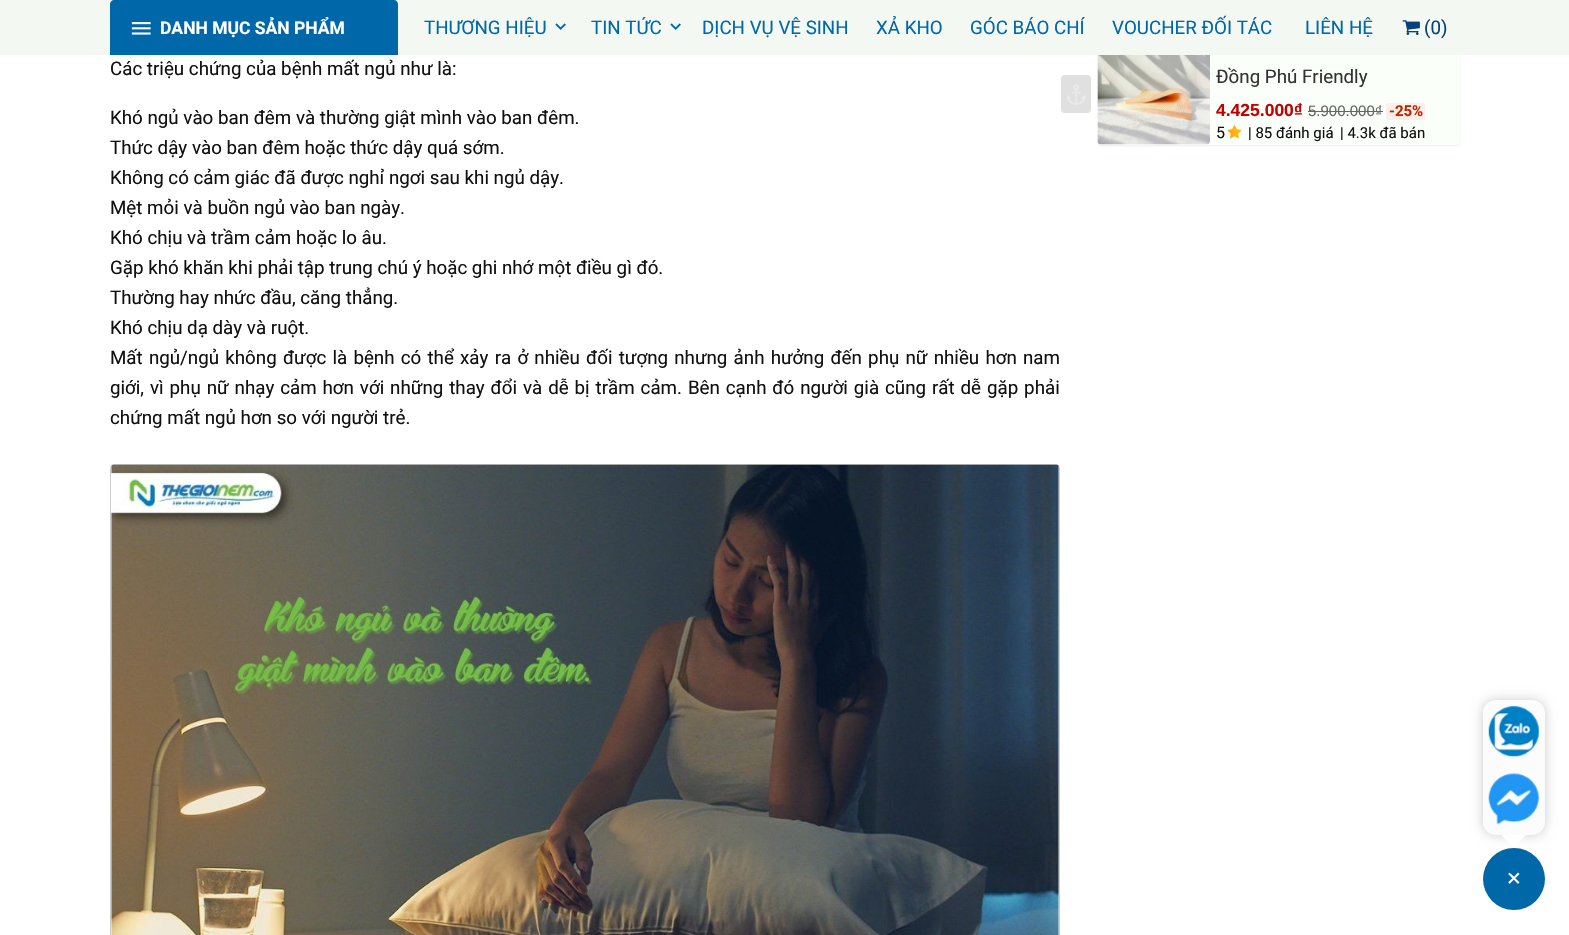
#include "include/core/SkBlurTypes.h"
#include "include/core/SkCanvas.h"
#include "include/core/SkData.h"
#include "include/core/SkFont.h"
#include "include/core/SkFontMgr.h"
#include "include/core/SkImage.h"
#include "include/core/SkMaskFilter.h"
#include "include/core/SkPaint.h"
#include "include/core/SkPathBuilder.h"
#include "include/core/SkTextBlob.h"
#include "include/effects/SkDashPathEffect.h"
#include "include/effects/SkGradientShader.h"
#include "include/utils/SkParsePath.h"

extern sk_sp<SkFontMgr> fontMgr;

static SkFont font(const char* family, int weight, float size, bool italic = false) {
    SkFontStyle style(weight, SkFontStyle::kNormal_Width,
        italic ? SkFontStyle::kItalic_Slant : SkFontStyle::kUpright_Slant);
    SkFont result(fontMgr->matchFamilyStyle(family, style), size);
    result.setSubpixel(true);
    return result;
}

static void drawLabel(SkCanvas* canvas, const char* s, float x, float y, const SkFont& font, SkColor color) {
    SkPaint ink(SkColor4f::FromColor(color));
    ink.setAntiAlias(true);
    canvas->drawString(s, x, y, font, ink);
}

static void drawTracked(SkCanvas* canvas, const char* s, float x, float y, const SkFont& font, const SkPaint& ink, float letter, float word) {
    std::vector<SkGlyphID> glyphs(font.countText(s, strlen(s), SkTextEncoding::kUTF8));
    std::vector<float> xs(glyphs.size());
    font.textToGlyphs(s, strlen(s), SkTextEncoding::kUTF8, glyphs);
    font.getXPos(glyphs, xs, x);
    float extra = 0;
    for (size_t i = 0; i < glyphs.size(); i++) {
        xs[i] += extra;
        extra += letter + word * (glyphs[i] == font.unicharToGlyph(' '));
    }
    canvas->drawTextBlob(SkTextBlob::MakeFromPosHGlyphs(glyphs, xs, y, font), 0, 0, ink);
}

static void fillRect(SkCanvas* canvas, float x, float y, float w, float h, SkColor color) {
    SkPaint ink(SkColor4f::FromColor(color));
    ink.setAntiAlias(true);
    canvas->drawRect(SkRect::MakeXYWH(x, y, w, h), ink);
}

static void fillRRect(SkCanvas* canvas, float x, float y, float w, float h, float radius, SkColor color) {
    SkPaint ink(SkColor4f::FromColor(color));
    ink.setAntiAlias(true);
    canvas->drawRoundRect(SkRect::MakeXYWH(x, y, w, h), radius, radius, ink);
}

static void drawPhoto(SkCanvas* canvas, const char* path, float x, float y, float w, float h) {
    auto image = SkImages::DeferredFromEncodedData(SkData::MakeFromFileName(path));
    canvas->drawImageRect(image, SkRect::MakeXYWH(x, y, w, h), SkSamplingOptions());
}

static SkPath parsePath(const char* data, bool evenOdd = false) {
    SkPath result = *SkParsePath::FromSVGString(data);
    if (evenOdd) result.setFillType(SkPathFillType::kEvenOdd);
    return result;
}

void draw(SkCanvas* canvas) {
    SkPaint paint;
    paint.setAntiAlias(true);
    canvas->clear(0xFFFFFFFF);
    paint.setColor(0xFFEEEEEE);
    paint.setMaskFilter(SkMaskFilter::MakeBlur(kNormal_SkBlurStyle, 1));
    canvas->drawRoundRect(SkRect::MakeXYWH(1098, 34, 362, 112), 4, 4, paint);
    paint.setMaskFilter(nullptr);
    fillRRect(canvas, 1098, 33, 362, 112, 4, 0xFFFAFFF9);
    fillRect(canvas, 0, 0, 1569, 55, 0xFFF3F9F2);
    paint.setColor(0xFF0068A9);
    canvas->drawPath(parsePath("M114 0H394C396 0 398 2 398 4V55H110V4C110 2 112 0 114 0Z"), paint);
    drawPhoto(canvas, "assets/img1.png", 131, 22, 20, 13);
    SkFont font1 = font("Roboto", 700, 17.5f);
    drawLabel(canvas, "DANH MỤC SẢN PHẨM", 160, 34, font1, 0xFFFFFFFF);
    SkFont font2 = font("Roboto", 400, 18.75f);
    drawLabel(canvas, "THƯƠNG HIỆU", 424, 34, font2, 0xFF0068A9);
    drawPhoto(canvas, "assets/img2.png", 555, 23, 11, 7);
    drawLabel(canvas, "TIN TỨC", 591, 34, font2, 0xFF0068A9);
    drawPhoto(canvas, "assets/img2.png", 670, 23, 11, 7);
    drawLabel(canvas, "DỊCH VỤ VỆ SINH", 702, 34, font2, 0xFF0068A9);
    drawLabel(canvas, "XẢ KHO", 876, 34, font2, 0xFF0068A9);
    drawLabel(canvas, "GÓC BÁO CHÍ", 970, 34, font2, 0xFF0068A9);
    drawLabel(canvas, "VOUCHER ĐỐI TÁC", 1112, 34, font2, 0xFF0068A9);
    drawLabel(canvas, "LIÊN HỆ", 1305, 34, font2, 0xFF0068A9);
    drawPhoto(canvas, "assets/img3.png", 1402, 20, 18, 15);
    drawLabel(canvas, "(0)", 1424, 34, font2, 0xFF07407B);
    drawLabel(canvas, "Các triệu chứng của bệnh mất ngủ như là:", 110, 75, font2, 0xFF111111);
    fillRRect(canvas, 1061, 75, 30, 38, 4, 0xFFE0E0E0);
    drawPhoto(canvas, "assets/img4.png", 1067, 84, 19, 21);
    drawLabel(canvas, "Khó ngủ vào ban đêm và thường giật mình vào ban đêm.", 110, 124, font2, 0xFF111111);
    drawLabel(canvas, "Thức dậy vào ban đêm hoặc thức dậy quá sớm.", 110, 154, font2, 0xFF111111);
    drawLabel(canvas, "Không có cảm giác đã được nghỉ ngơi sau khi ngủ dậy.", 110, 184, font2, 0xFF111111);
    drawLabel(canvas, "Mệt mỏi và buồn ngủ vào ban ngày.", 110, 214, font2, 0xFF111111);
    drawLabel(canvas, "Khó chịu và trầm cảm hoặc lo âu.", 110, 244, font2, 0xFF111111);
    drawLabel(canvas, "Gặp khó khăn khi phải tập trung chú ý hoặc ghi nhớ một điều gì đó.", 110, 274, font2, 0xFF111111);
    drawLabel(canvas, "Thường hay nhức đầu, căng thẳng.", 110, 304, font2, 0xFF111111);
    drawLabel(canvas, "Khó chịu dạ dày và ruột.", 110, 334, font2, 0xFF111111);
    paint.setColor(0xFF111111);
    drawTracked(canvas, "Mất ngủ/ngủ không được là bệnh có thể xảy ra ở nhiều đối tượng nhưng ảnh hưởng đến phụ nữ nhiều hơn nam", 110, 364, font2, paint, 0, 1.55f);
    drawTracked(canvas, "giới, vì phụ nữ nhạy cảm hơn với những thay đổi và dễ bị trầm cảm. Bên cạnh đó người già cũng rất dễ gặp phải", 110, 394, font2, paint, 0, 1.25f);
    drawLabel(canvas, "chứng mất ngủ hơn so với người trẻ.", 110, 424, font2, 0xFF111111);
    paint.setStroke(true);
    paint.setStrokeWidth(1);
    paint.setColor(0xFFCCCCCC);
    canvas->drawRoundRect(SkRect::MakeXYWH(110.5f, 464.5f, 949, 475), 3.5f, 3.5f, paint);
    drawPhoto(canvas, "assets/img5.png", 111, 464, 948, 471);
    drawPhoto(canvas, "assets/img6.png", 1097, 55, 113, 90);
    drawLabel(canvas, "Đồng Phú Friendly", 1216, 83, font2, 0xFF333333);
    SkFont font3 = font("Liberation Sans", 700, 17.5f);
    drawLabel(canvas, "4.425.000₫", 1216, 116, font3, 0xFFC50000);
    SkFont font4 = font("Liberation Sans", 400, 15);
    drawLabel(canvas, "5.900.000₫", 1308, 116, font4, 0xFF666666);
    fillRect(canvas, 1308, 111, 75, 1, 0xFF666666);
    fillRRect(canvas, 1386, 103, 39, 17, 2.5f, 0xFFFDEEE9);
    SkFont font5 = font("Roboto", 700, 15);
    drawLabel(canvas, "-25%", 1389, 116, font5, 0xFFBC2500);
    SkFont font6 = font("Roboto", 400, 16);
    drawLabel(canvas, "5", 1216, 138, font6, 0xFF111111);
    drawPhoto(canvas, "assets/img7.png", 1227, 125, 15, 14);
    SkFont font7 = font("Roboto", 400, 15);
    drawLabel(canvas, "| 85 đánh giá", 1248, 138, font7, 0xFF111111);
    drawLabel(canvas, "| 4.3k đã bán", 1340, 138, font7, 0xFF111111);
    paint.setStroke(false);
    paint.setColor(0xFF0068A9);
    canvas->drawCircle(1514, 879, 31, paint);
    paint.setColor(0xFFCCCCCC);
    paint.setMaskFilter(SkMaskFilter::MakeBlur(kNormal_SkBlurStyle, 6));
    canvas->drawRoundRect(SkRect::MakeXYWH(1483, 700, 62, 135), 13, 13, paint);
    paint.setMaskFilter(nullptr);
    fillRRect(canvas, 1483, 700, 62, 135, 13, 0xFFFCFCFC);
    drawPhoto(canvas, "assets/img8.png", 1488, 706, 51, 51);
    drawPhoto(canvas, "assets/img9.png", 1488, 773, 51, 52);
    paint.setColor(0xFFFFFFFF);
    canvas->drawPath(parsePath("M1501 835H1526L1514 847.5Z"), paint);
    SkFont font8 = font("DejaVu Sans", 400, 18.75f);
    drawLabel(canvas, "✕", 1506, 885, font8, 0xFFFFFFFF);
}
